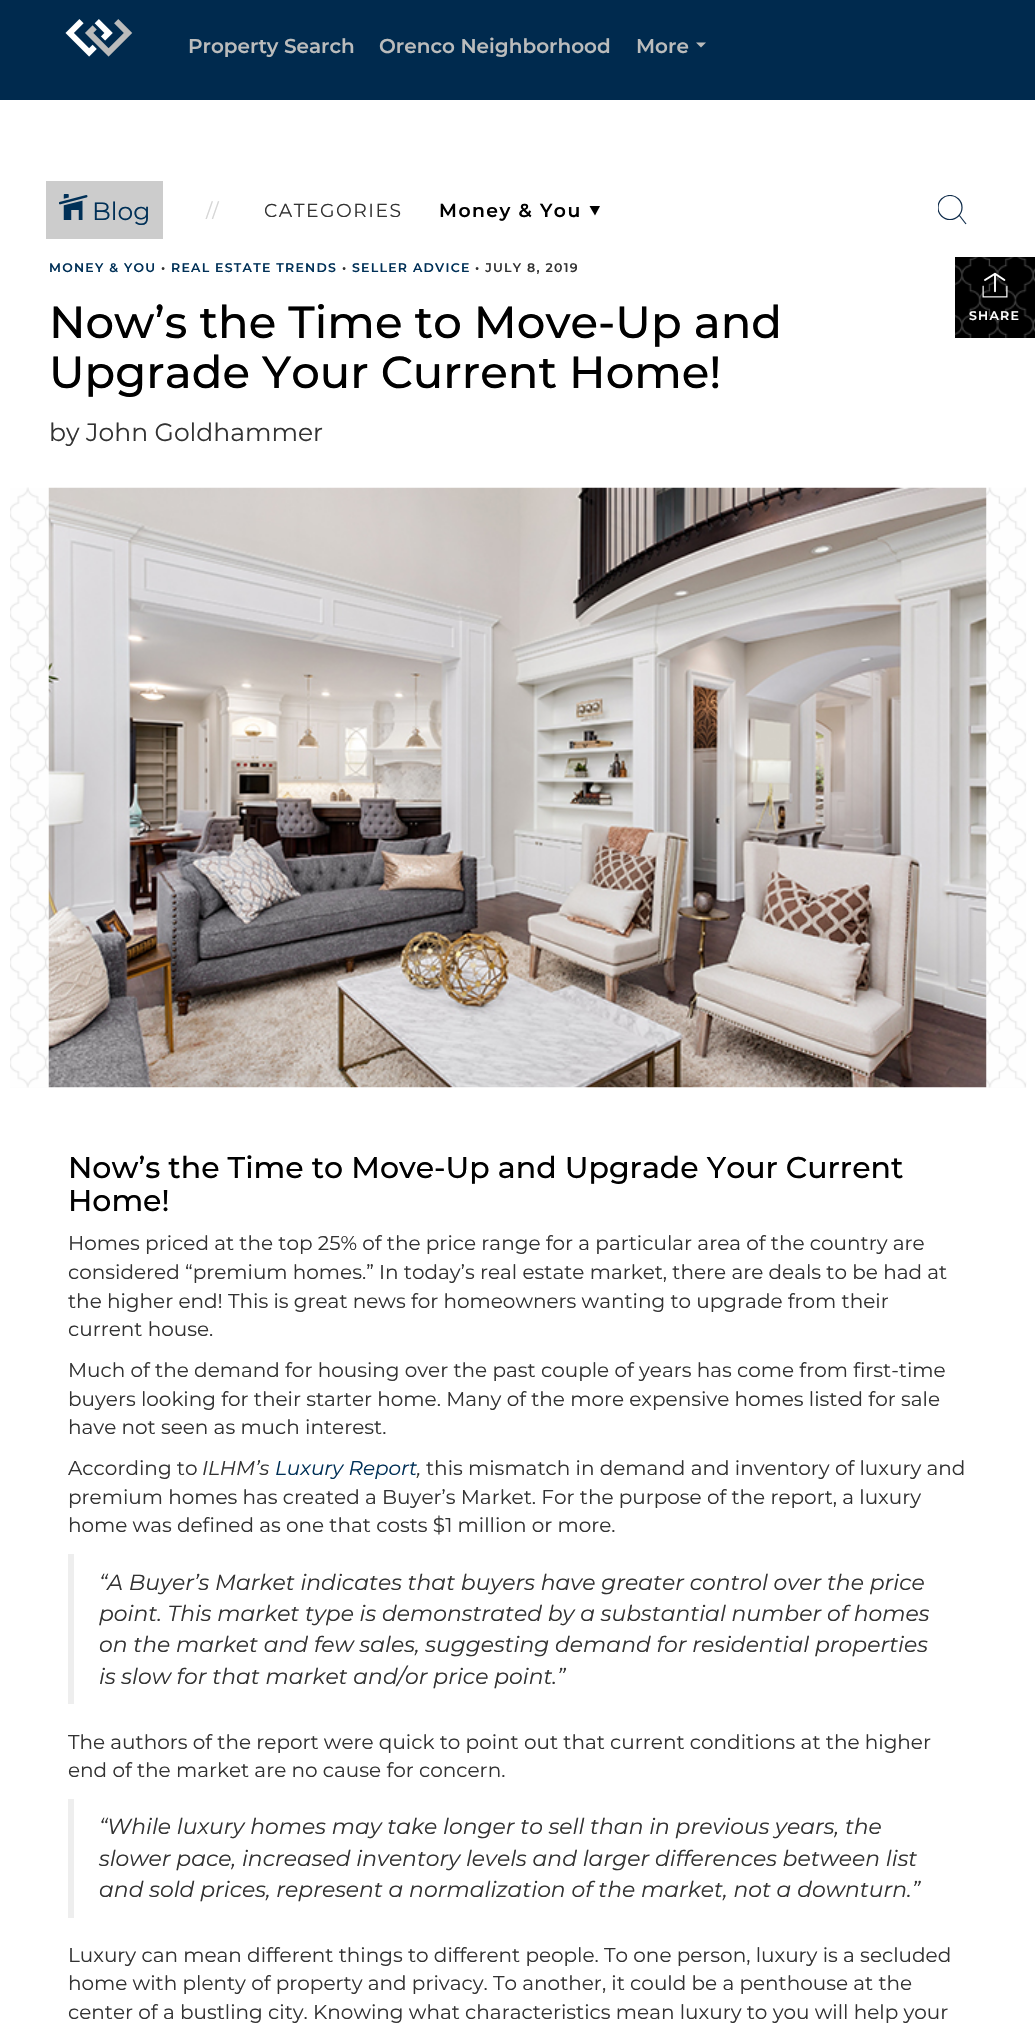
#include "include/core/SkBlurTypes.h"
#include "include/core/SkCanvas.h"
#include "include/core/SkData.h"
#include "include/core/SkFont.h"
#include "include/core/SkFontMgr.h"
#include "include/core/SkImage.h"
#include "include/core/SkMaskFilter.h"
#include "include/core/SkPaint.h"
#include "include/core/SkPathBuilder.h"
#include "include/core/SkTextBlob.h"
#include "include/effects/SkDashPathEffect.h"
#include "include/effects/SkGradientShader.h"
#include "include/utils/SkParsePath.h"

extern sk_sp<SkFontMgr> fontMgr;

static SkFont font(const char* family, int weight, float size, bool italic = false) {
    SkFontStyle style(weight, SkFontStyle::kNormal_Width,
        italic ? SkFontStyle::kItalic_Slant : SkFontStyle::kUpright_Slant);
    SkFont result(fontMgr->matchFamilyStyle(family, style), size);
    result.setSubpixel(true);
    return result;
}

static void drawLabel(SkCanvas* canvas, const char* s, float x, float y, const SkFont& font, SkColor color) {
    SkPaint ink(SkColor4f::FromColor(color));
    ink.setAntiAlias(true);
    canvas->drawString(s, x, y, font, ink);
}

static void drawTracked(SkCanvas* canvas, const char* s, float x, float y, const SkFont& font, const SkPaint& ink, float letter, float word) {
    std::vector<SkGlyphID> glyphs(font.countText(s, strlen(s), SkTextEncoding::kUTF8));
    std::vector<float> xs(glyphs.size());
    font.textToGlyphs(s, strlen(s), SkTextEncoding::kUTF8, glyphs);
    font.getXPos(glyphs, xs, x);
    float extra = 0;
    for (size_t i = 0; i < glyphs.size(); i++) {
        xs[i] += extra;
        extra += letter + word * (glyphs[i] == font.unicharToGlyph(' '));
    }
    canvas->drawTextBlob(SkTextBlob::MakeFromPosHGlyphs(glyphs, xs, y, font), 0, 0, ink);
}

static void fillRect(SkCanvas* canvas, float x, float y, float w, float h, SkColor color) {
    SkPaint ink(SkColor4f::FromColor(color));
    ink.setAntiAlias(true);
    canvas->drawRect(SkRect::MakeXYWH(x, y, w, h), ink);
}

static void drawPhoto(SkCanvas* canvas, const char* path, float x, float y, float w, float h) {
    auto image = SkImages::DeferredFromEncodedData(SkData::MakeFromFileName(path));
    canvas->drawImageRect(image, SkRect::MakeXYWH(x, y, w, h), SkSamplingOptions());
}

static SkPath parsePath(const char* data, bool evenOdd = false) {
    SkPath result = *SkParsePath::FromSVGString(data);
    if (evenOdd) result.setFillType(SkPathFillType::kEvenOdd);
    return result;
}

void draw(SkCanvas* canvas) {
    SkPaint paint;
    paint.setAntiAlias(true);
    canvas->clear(0xFFFFFFFF);
    fillRect(canvas, 0, 0, 1035, 100, 0xFF002A4E);
    drawPhoto(canvas, "assets/img1.png", 65, 19, 68, 38);
    SkFont font1 = font("Montserrat", 600, 20);
    drawLabel(canvas, "Property Search", 188, 53, font1, 0xFFBBBCBC);
    drawLabel(canvas, "Orenco Neighborhood", 379, 53, font1, 0xFFBBBCBC);
    drawLabel(canvas, "More", 636, 53, font1, 0xFFBBBCBC);
    paint.setColor(0xFFBBBCBC);
    canvas->drawPath(parsePath("M696 42.5H706L701 47.5Z"), paint);
    fillRect(canvas, 10, 488, 1016, 600, 0xFFFCFCFC);
    drawPhoto(canvas, "assets/img3.png", 10, 487, 1017, 601);
    fillRect(canvas, 49, 487, 937, 601, 0xFFFFFFFF);
    fillRect(canvas, 46, 181, 117, 58, 0xFFCCCCCC);
    drawPhoto(canvas, "assets/img2.png", 59, 194, 29, 26);
    SkFont font2 = font("Montserrat", 400, 25);
    drawLabel(canvas, "Blog", 92, 220, font2, 0xFF003057);
    SkFont font3 = font("Montserrat", 400, 18.75f);
    drawLabel(canvas, "//", 206, 217, font3, 0xFFD5D5D5);
    paint.setColor(0xFF333333);
    drawTracked(canvas, "CATEGORIES", 264, 217, font3, paint, 1.5f, 0);
    paint.setColor(0xFF000000);
    canvas->drawPath(parsePath("M595 215.5L600 206H589.5Z"), paint);
    SkFont font4 = font("Montserrat", 600, 18.75f);
    drawTracked(canvas, "Money & You", 439, 217, font4, paint, 1.5f, 0);
    canvas->save();
    canvas->clipRect(SkRect::MakeXYWH(938, 195, 30, 30));
    paint.setStroke(true);
    paint.setStrokeWidth(1.2f);
    paint.setColor(0xFF0E2B4A);
    canvas->drawCircle(950, 207.5f, 12, paint);
    canvas->restore();
    canvas->drawPath(parsePath("M959 215L966 224"), paint);
    SkFont font5 = font("Montserrat", 600, 12.5f);
    paint.setStroke(false);
    paint.setColor(0xFF003057);
    drawTracked(canvas, "MONEY & YOU", 49, 272, font5, paint, 1.25f, 0);
    paint.setColor(0xFF333333);
    drawTracked(canvas, "•", 161, 272, font5, paint, 1.25f, 0);
    paint.setColor(0xFF003057);
    drawTracked(canvas, "REAL ESTATE TRENDS", 171, 272, font5, paint, 1.25f, 0);
    paint.setColor(0xFF333333);
    drawTracked(canvas, "•", 342, 272, font5, paint, 1.25f, 0);
    paint.setColor(0xFF003057);
    drawTracked(canvas, "SELLER ADVICE", 352, 272, font5, paint, 1.25f, 0);
    paint.setColor(0xFF333333);
    drawTracked(canvas, "• JULY 8, 2019", 475, 272, font5, paint, 1.25f, 0);
    SkFont font6 = font("Montserrat", 500, 45);
    drawLabel(canvas, "Now’s the Time to Move-Up and", 49, 338, font6, 0xFF000000);
    drawLabel(canvas, "Upgrade Your Current Home!", 49, 388, font6, 0xFF000000);
    drawLabel(canvas, "by John Goldhammer", 49, 441, font2, 0xFF333333);
    drawPhoto(canvas, "assets/img4.png", 48, 487, 939, 601);
    SkFont font7 = font("Montserrat", 500, 30);
    drawLabel(canvas, "Now’s the Time to Move-Up and Upgrade Your Current", 68, 1178, font7, 0xFF000000);
    drawLabel(canvas, "Home!", 68, 1211, font7, 0xFF000000);
    SkFont font8 = font("Montserrat", 400, 20);
    drawLabel(canvas, "Homes priced at the top 25% of the price range for a particular area of the country are", 68, 1250, font8, 0xFF333333);
    drawLabel(canvas, "considered “premium homes.” In today’s real estate market, there are deals to be had at", 68, 1279, font8, 0xFF333333);
    drawLabel(canvas, "the higher end! This is great news for homeowners wanting to upgrade from their", 68, 1308, font8, 0xFF333333);
    drawLabel(canvas, "current house.", 68, 1336, font8, 0xFF333333);
    drawLabel(canvas, "Much of the demand for housing over the past couple of years has come from first-time", 68, 1377, font8, 0xFF333333);
    drawLabel(canvas, "buyers looking for their starter home. Many of the more expensive homes listed for sale", 68, 1406, font8, 0xFF333333);
    drawLabel(canvas, "have not seen as much interest.", 68, 1434, font8, 0xFF333333);
    drawLabel(canvas, "According to", 68, 1475, font8, 0xFF333333);
    SkFont font9 = font("Montserrat", 100, 20, true);
    drawLabel(canvas, "ILHM’s", 202, 1475, font9, 0xFF333333);
    drawLabel(canvas, "Luxury Report", 275, 1475, font9, 0xFF003057);
    drawLabel(canvas, ",", 417, 1475, font9, 0xFF333333);
    drawLabel(canvas, "this mismatch in demand and inventory of luxury and", 426, 1475, font8, 0xFF333333);
    drawLabel(canvas, "premium homes has created a Buyer’s Market. For the purpose of the report, a luxury", 68, 1504, font8, 0xFF333333);
    drawLabel(canvas, "home was defined as one that costs $1 million or more.", 68, 1532, font8, 0xFF333333);
    fillRect(canvas, 68, 1554, 6, 150, 0xFFEEEEEE);
    SkFont font10 = font("Montserrat", 100, 21.9f, true);
    drawLabel(canvas, "“A Buyer’s Market indicates that buyers have greater control over the price", 99, 1590, font10, 0xFF333333);
    drawLabel(canvas, "point. This market type is demonstrated by a substantial number of homes", 99, 1621, font10, 0xFF333333);
    drawLabel(canvas, "on the market and few sales, suggesting demand for residential properties", 99, 1652, font10, 0xFF333333);
    drawLabel(canvas, "is slow for that market and/or price point.”", 99, 1684, font10, 0xFF333333);
    drawLabel(canvas, "The authors of the report were quick to point out that current conditions at the higher", 68, 1749, font8, 0xFF333333);
    drawLabel(canvas, "end of the market are no cause for concern.", 68, 1777, font8, 0xFF333333);
    fillRect(canvas, 68, 1799, 6, 119, 0xFFEEEEEE);
    drawLabel(canvas, "“While luxury homes may take longer to sell than in previous years, the", 99, 1834, font10, 0xFF333333);
    drawLabel(canvas, "slower pace, increased inventory levels and larger differences between list", 99, 1866, font10, 0xFF333333);
    drawLabel(canvas, "and sold prices, represent a normalization of the market, not a downturn.”", 99, 1897, font10, 0xFF333333);
    drawLabel(canvas, "Luxury can mean different things to different people. To one person, luxury is a secluded", 68, 1962, font8, 0xFF333333);
    drawLabel(canvas, "home with plenty of property and privacy. To another, it could be a penthouse at the", 68, 1990, font8, 0xFF333333);
    drawLabel(canvas, "center of a bustling city. Knowing what characteristics mean luxury to you will help your", 68, 2019, font8, 0xFF333333);
    drawPhoto(canvas, "assets/img5.png", 955, 257, 80, 81);
    drawPhoto(canvas, "assets/img6.png", 982, 272, 26, 26);
    paint.setColor(0xFFFFFFFF);
    drawTracked(canvas, "SHARE", 969, 320, font5, paint, 1.25f, 0);
}
